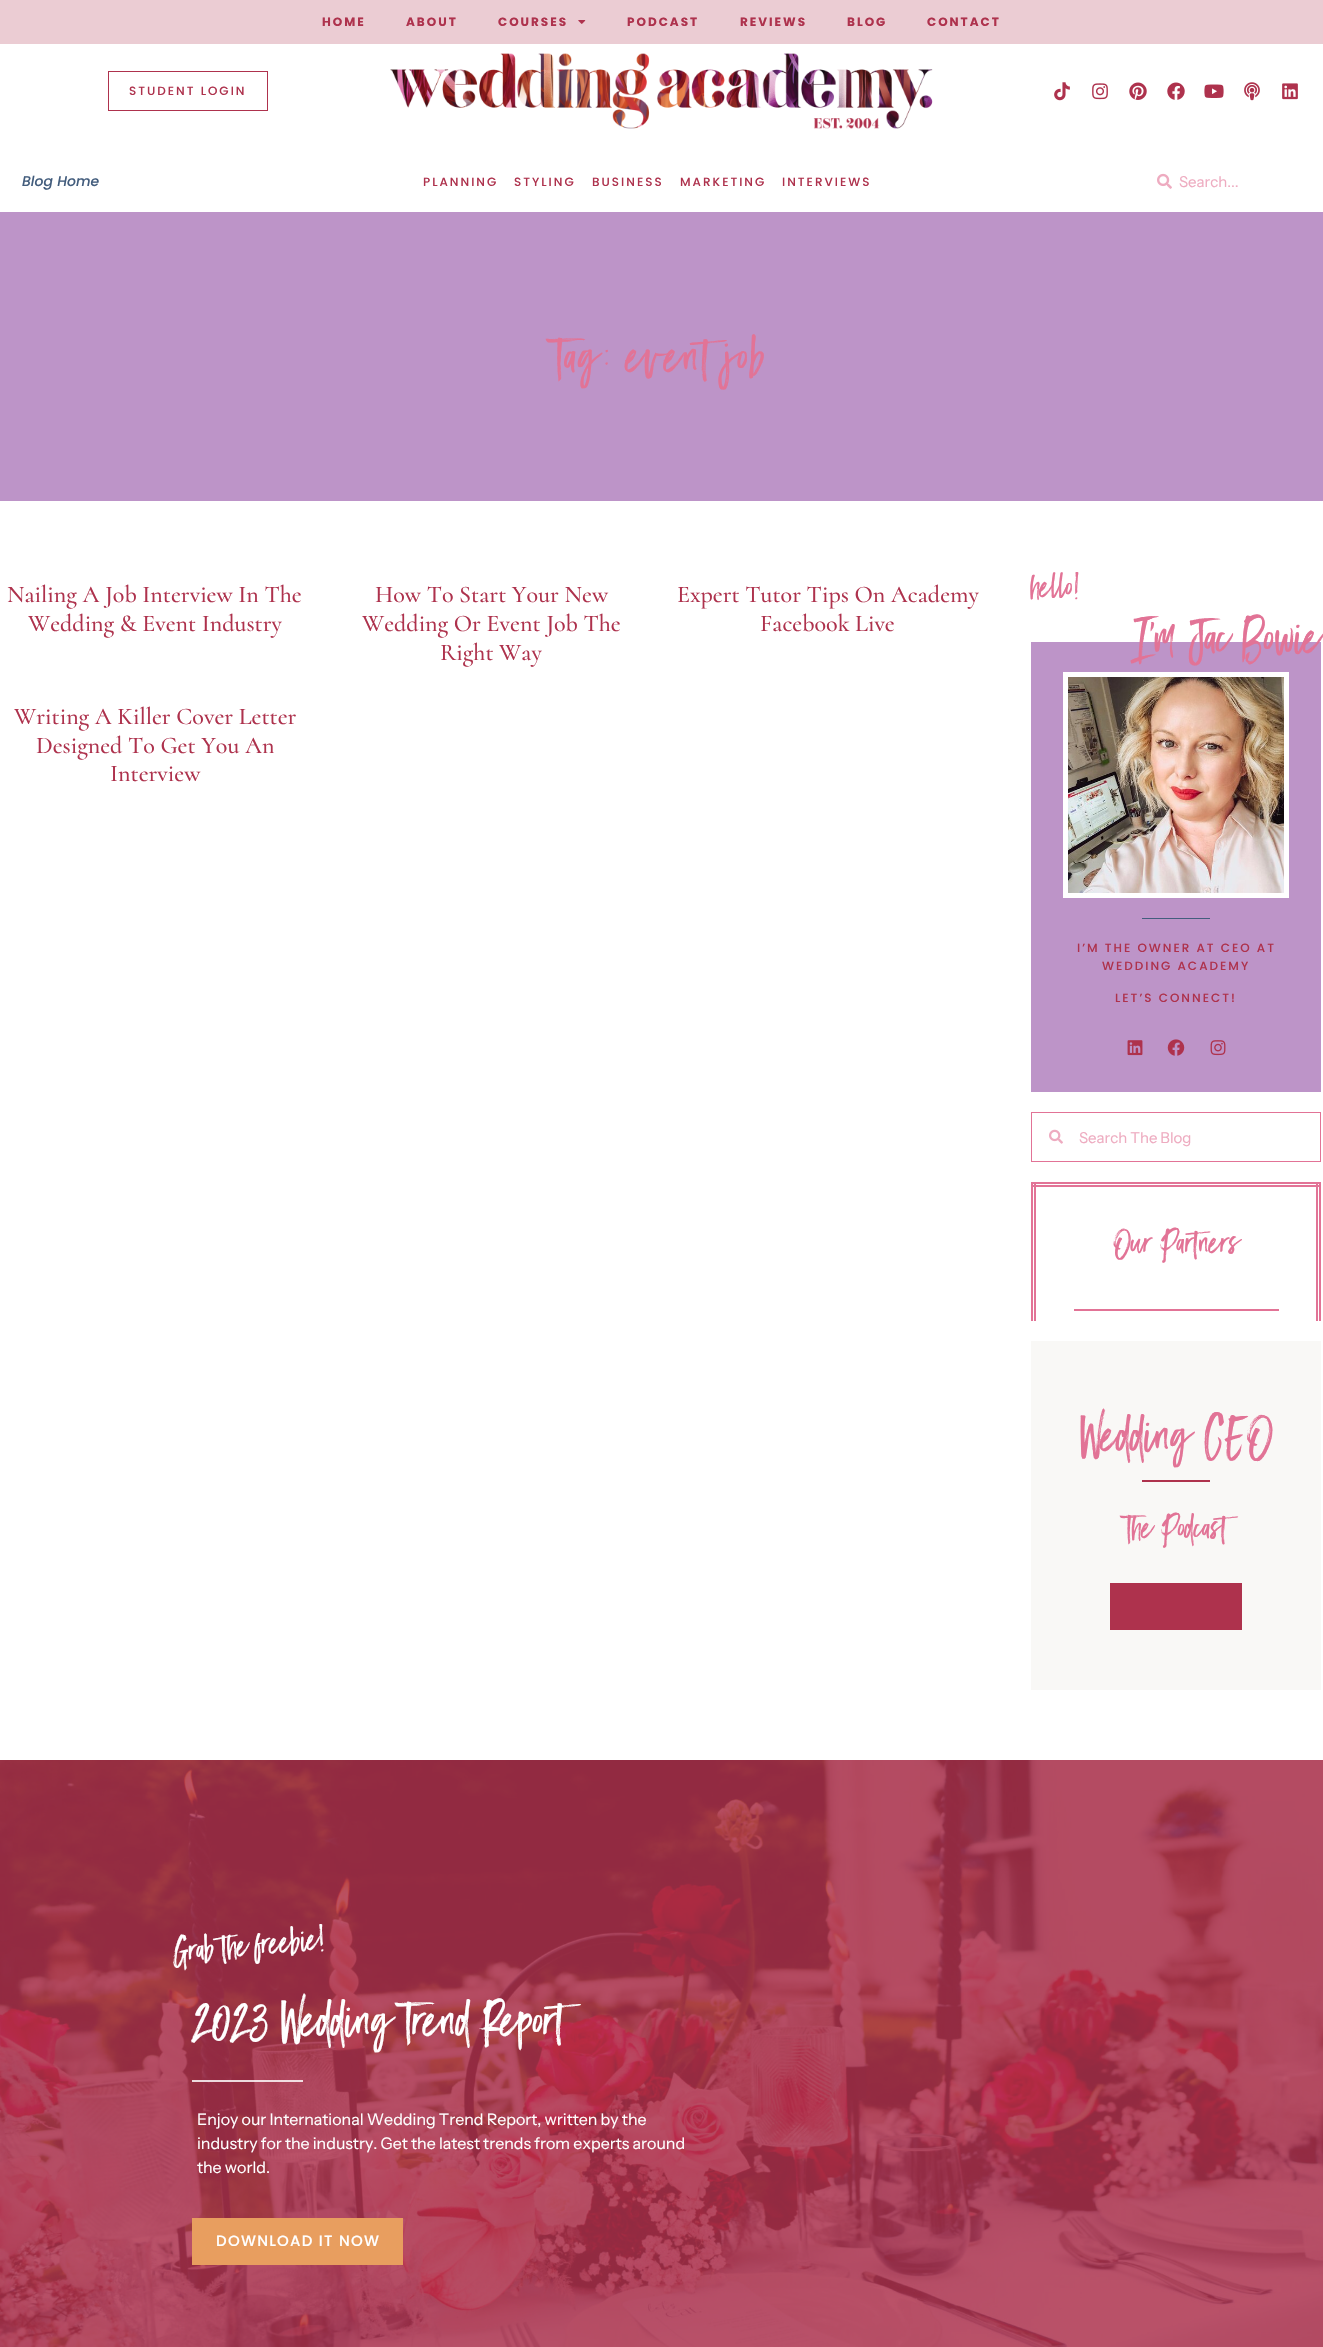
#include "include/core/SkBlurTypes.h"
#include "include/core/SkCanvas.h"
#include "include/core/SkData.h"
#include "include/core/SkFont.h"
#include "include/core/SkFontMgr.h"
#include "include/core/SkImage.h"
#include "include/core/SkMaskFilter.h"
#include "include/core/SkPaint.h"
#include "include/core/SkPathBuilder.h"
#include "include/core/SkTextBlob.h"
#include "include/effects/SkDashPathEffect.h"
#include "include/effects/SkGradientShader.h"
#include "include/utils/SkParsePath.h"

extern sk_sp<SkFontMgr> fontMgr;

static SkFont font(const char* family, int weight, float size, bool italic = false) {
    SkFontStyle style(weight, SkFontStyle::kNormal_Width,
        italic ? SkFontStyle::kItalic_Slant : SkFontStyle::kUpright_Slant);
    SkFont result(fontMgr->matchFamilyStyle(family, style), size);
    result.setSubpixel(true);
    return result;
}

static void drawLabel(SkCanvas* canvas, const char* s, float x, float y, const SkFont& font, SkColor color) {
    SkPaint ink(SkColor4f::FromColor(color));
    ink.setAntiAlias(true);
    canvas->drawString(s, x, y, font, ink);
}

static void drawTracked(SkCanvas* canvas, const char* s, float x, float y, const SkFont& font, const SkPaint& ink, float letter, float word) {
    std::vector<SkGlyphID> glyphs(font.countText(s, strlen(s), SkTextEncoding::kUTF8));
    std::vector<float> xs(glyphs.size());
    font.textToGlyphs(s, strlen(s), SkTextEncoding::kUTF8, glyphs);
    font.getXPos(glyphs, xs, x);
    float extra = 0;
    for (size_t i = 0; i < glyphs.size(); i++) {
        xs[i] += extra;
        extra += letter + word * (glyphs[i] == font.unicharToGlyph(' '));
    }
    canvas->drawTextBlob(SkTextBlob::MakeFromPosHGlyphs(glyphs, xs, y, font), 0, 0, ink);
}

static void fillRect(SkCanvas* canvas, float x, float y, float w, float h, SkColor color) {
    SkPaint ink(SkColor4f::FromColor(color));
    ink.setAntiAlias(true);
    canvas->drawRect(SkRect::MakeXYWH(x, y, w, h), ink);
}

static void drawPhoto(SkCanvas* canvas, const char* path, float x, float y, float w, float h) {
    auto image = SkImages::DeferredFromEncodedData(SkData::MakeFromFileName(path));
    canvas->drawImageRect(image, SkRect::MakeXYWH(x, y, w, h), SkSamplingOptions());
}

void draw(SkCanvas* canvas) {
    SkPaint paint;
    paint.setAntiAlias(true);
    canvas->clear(0xFFFFFFFF);
    fillRect(canvas, 0, 0, 1323, 44, 0xFFEBCCD3);
    SkFont font1 = font("Poppins", 700, 12);
    paint.setColor(0xFFAE324D);
    drawTracked(canvas, "HOME", 322, 26, font1, paint, 2, 0);
    drawTracked(canvas, "ABOUT", 406, 26, font1, paint, 2, 0);
    drawTracked(canvas, "COURSES", 498, 26, font1, paint, 2, 0);
    drawPhoto(canvas, "assets/img1.png", 578, 20, 8, 4);
    drawTracked(canvas, "PODCAST", 627, 26, font1, paint, 2, 0);
    drawTracked(canvas, "REVIEWS", 740, 26, font1, paint, 2, 0);
    drawTracked(canvas, "BLOG", 847, 26, font1, paint, 2, 0);
    drawTracked(canvas, "CONTACT", 927, 26, font1, paint, 2, 0);
    paint.setStroke(true);
    paint.setStrokeWidth(1);
    canvas->drawRect(SkRect::MakeXYWH(108.5f, 71.5f, 159, 39), paint);
    SkFont font2 = font("Poppins", 500, 12);
    paint.setStroke(false);
    drawTracked(canvas, "STUDENT LOGIN", 129, 95, font2, paint, 2, 0);
    drawPhoto(canvas, "assets/img2.png", 390, 53, 543, 76);
    drawPhoto(canvas, "assets/img3.png", 1054, 82, 16, 19);
    drawPhoto(canvas, "assets/img4.png", 1092, 83, 16, 17);
    drawPhoto(canvas, "assets/img5.png", 1129, 82, 18, 18);
    drawPhoto(canvas, "assets/img6.png", 1167, 82, 18, 18);
    drawPhoto(canvas, "assets/img7.png", 1204, 84, 20, 14);
    drawPhoto(canvas, "assets/img8.png", 1244, 82, 16, 19);
    drawPhoto(canvas, "assets/img9.png", 1282, 83, 16, 17);
    SkFont font3 = font("Poppins", 500, 14, true);
    drawLabel(canvas, "Blog Home", 22, 186, font3, 0xFF435D7D);
    drawTracked(canvas, "PLANNING", 423, 186, font2, paint, 2, 0);
    drawTracked(canvas, "STYLING", 514, 186, font2, paint, 2, 0);
    drawTracked(canvas, "BUSINESS", 592, 186, font2, paint, 2, 0);
    drawTracked(canvas, "MARKETING", 680, 186, font2, paint, 2, 0);
    drawTracked(canvas, "INTERVIEWS", 782, 186, font2, paint, 2, 0);
    drawPhoto(canvas, "assets/img10.png", 1157, 173, 15, 16);
    SkFont font4 = font("Instrument Sans", 400, 15);
    drawLabel(canvas, "Search...", 1179, 187, font4, 0xFFEEABC0);
    fillRect(canvas, 0, 212, 1323, 289, 0xFFBD94C8);
    SkFont font5 = font("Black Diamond", 900, 46);
    paint.setColor(0xFFE27396);
    drawTracked(canvas, "Tag: event job", 555, 369, font5, paint, 2, 0);
    SkFont font6 = font("Cormorant", 500, 24);
    drawLabel(canvas, "Nailing A Job Interview In The", 7, 602, font6, 0xFFAE324D);
    drawLabel(canvas, "Wedding & Event Industry", 28, 631, font6, 0xFFAE324D);
    drawLabel(canvas, "How To Start Your New", 375, 602, font6, 0xFFAE324D);
    drawLabel(canvas, "Wedding Or Event Job The", 362, 631, font6, 0xFFAE324D);
    drawLabel(canvas, "Right Way", 440, 660, font6, 0xFFAE324D);
    drawLabel(canvas, "Expert Tutor Tips On Academy", 677, 602, font6, 0xFFAE324D);
    drawLabel(canvas, "Facebook Live", 760, 631, font6, 0xFFAE324D);
    drawLabel(canvas, "Writing A Killer Cover Letter", 14, 724, font6, 0xFFAE324D);
    drawLabel(canvas, "Designed To Get You An", 36, 753, font6, 0xFFAE324D);
    drawLabel(canvas, "Interview", 110, 781, font6, 0xFFAE324D);
    SkFont font7 = font("Black Diamond", 900, 31);
    drawLabel(canvas, "hello!", 1031, 595, font7, 0xFFE27396);
    fillRect(canvas, 1031, 642, 290, 450, 0xFFBD94C8);
    drawLabel(canvas, "I'm Jac Bowie", 1132, 650, font5, 0xFFE27396);
    paint.setStroke(true);
    paint.setStrokeWidth(5);
    paint.setColor(0xFFFFFFFF);
    canvas->drawRect(SkRect::MakeXYWH(1065.5f, 674.5f, 221, 221), paint);
    drawPhoto(canvas, "assets/img11.png", 1068, 677, 216, 216);
    fillRect(canvas, 1142, 918, 68, 1, 0xFF435D7D);
    paint.setStroke(false);
    paint.setColor(0xFFAE324D);
    drawTracked(canvas, "I’M THE OWNER AT CEO AT", 1077, 952, font2, paint, 2, 0);
    drawTracked(canvas, "WEDDING ACADEMY", 1102, 970, font2, paint, 2, 0);
    drawTracked(canvas, "LET’S CONNECT!", 1115, 1002, font2, paint, 2, 0);
    drawPhoto(canvas, "assets/img12.png", 1127, 1040, 16, 16);
    drawPhoto(canvas, "assets/img13.png", 1167, 1039, 18, 17);
    drawPhoto(canvas, "assets/img14.png", 1210, 1040, 16, 16);
    paint.setStroke(true);
    paint.setStrokeWidth(1);
    paint.setColor(0xFFE27396);
    canvas->drawRect(SkRect::MakeXYWH(1031.5f, 1112.5f, 289, 49), paint);
    drawPhoto(canvas, "assets/img15.png", 1049, 1129, 14, 15);
    drawLabel(canvas, "Search The Blog", 1079, 1143, font4, 0xFFEEABC0);
    fillRect(canvas, 1031, 1182, 290, 2, 0xFFE27396);
    fillRect(canvas, 1031, 1185, 290, 2, 0xFFE27396);
    fillRect(canvas, 1316, 1182, 2, 139, 0xFFE27396);
    fillRect(canvas, 1319, 1182, 2, 139, 0xFFE27396);
    fillRect(canvas, 1031, 1182, 2, 139, 0xFFE27396);
    fillRect(canvas, 1034, 1182, 2, 139, 0xFFE27396);
    drawLabel(canvas, "Our Partners", 1112, 1251, font7, 0xFFE27396);
    fillRect(canvas, 1074, 1309, 205, 2, 0xFFE27396);
    fillRect(canvas, 1031, 1341, 290, 349, 0xFFF9F8F6);
    drawLabel(canvas, "Wedding CEO", 1079, 1448, font5, 0xFFE27396);
    fillRect(canvas, 1142, 1480, 68, 2, 0xFFAE324D);
    drawLabel(canvas, "The Podcast", 1126, 1536, font7, 0xFFE27396);
    fillRect(canvas, 1110, 1583, 132, 47, 0xFFAE324D);
    drawPhoto(canvas, "assets/img16.png", 0, 1760, 1323, 587);
    canvas->save();
    canvas->rotate(-5, 173, 1960);
    drawLabel(canvas, "Grab the freebie!", 173, 1960, font7, 0xFFFFFFFF);
    canvas->restore();
    drawLabel(canvas, "2023 Wedding Trend Report", 192, 2033, font5, 0xFFFFFFFF);
    fillRect(canvas, 192, 2080, 111, 2, 0xD1FFFFFF);
    SkFont font8 = font("Instrument Sans", 400, 16);
    drawLabel(canvas, "Enjoy our International Wedding Trend Report, written by the", 197, 2125, font8, 0xFFFFFFFF);
    drawLabel(canvas, "industry for the industry. Get the latest trends from experts around", 197, 2149, font8, 0xFFFFFFFF);
    drawLabel(canvas, "the world.", 197, 2173, font8, 0xFFFFFFFF);
    fillRect(canvas, 192, 2218, 211, 47, 0xFFE89E5F);
    SkFont font9 = font("Poppins", 500, 15);
    paint.setStroke(false);
    paint.setColor(0xFFFFFFFF);
    drawTracked(canvas, "DOWNLOAD IT NOW", 216, 2246, font9, paint, 1.25f, 0);
}
